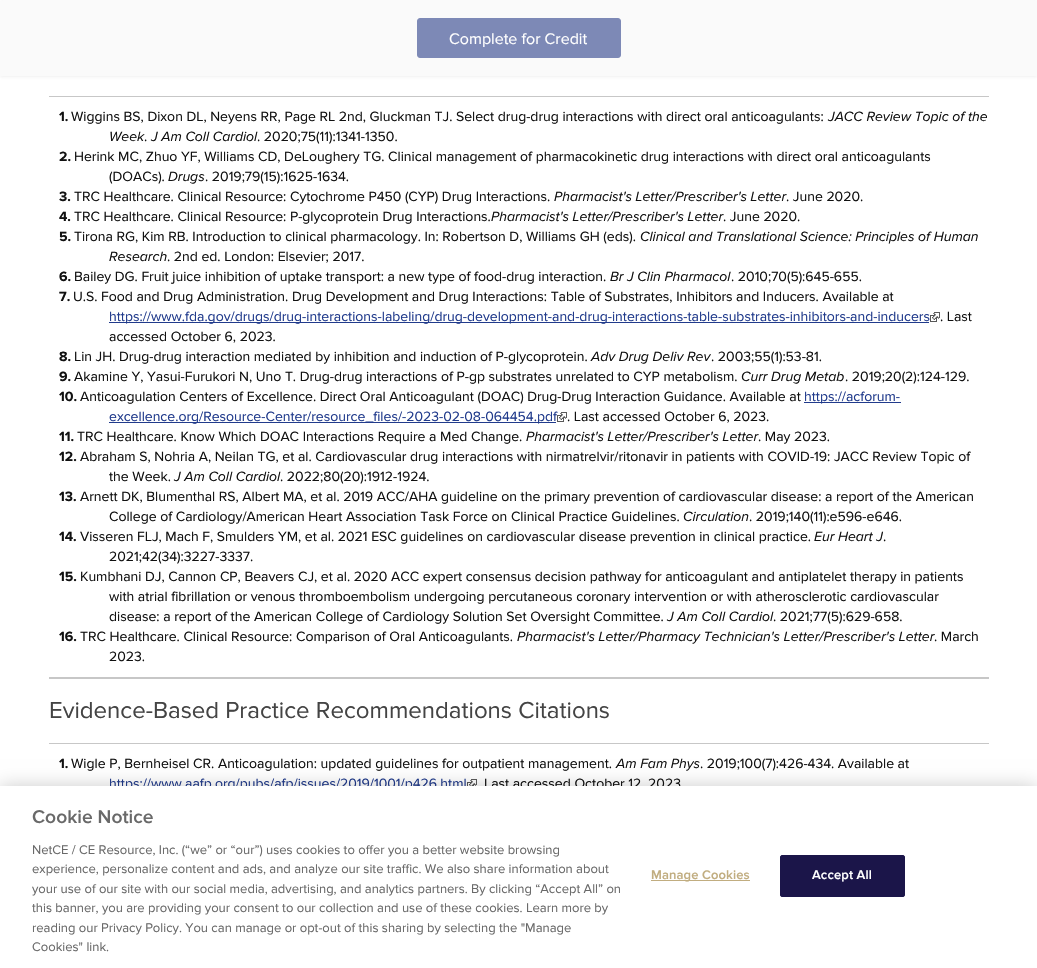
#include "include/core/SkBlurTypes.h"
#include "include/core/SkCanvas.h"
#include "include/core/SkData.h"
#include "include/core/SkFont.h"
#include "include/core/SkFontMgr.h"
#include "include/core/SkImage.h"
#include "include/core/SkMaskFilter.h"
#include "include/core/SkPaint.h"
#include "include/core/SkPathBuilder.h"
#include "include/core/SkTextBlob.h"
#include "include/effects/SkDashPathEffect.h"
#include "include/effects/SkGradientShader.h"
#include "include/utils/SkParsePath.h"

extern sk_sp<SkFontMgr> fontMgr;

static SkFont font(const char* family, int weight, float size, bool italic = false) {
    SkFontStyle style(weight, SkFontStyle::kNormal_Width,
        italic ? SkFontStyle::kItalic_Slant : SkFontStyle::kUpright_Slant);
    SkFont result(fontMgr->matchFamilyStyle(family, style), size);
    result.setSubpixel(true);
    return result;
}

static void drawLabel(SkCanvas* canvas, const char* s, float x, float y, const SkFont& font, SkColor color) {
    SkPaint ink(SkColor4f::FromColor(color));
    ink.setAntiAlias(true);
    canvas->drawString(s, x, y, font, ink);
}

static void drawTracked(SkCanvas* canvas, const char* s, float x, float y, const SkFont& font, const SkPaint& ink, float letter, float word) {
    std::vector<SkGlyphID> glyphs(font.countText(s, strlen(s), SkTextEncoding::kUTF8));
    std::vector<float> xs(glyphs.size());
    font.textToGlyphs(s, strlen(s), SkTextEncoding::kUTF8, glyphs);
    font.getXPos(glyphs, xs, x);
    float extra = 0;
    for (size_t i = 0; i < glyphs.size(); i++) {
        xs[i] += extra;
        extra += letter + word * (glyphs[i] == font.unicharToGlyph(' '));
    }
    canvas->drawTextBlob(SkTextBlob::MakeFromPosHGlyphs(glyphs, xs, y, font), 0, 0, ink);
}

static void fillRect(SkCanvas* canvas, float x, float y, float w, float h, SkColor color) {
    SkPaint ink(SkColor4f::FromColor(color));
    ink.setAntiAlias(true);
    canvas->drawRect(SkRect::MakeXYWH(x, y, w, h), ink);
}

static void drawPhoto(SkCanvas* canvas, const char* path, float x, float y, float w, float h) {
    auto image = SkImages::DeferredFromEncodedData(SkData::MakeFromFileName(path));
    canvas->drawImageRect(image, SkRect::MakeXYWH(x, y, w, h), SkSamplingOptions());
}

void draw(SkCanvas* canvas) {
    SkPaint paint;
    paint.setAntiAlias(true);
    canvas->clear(0xFFFFFFFF);
    paint.setColor(0x1A707070);
    paint.setMaskFilter(SkMaskFilter::MakeBlur(kNormal_SkBlurStyle, 1.5f));
    canvas->drawRect(SkRect::MakeXYWH(0, 1, 1037, 76), paint);
    paint.setMaskFilter(nullptr);
    fillRect(canvas, 0, 1, 1037, 75, 0xFFFAFAFA);
    paint.setColor(0xFF7D89B6);
    canvas->drawRoundRect(SkRect::MakeXYWH(417.5f, 18.5f, 203, 39), 2.5f, 2.5f, paint);
    paint.setStroke(true);
    paint.setStrokeWidth(1);
    canvas->drawRoundRect(SkRect::MakeXYWH(417.5f, 18.5f, 203, 39), 2.5f, 2.5f, paint);
    SkFont font1 = font("Proxima Nova", 400, 16);
    drawLabel(canvas, "Complete for Credit", 449, 44, font1, 0xFFFFFFFF);
    fillRect(canvas, 49, 96, 940, 1, 0xFFC7C7C7);
    SkFont font2 = font("Proxima Nova", 700, 14);
    drawLabel(canvas, "1.", 59, 121, font2, 0xFF111111);
    SkFont font3 = font("Proxima Nova", 400, 14);
    drawLabel(canvas, "Wiggins BS, Dixon DL, Neyens RR, Page RL 2nd, Gluckman TJ. Select drug-drug interactions with direct oral anticoagulants:", 71, 121, font3, 0xFF111111);
    SkFont font4 = font("Proxima Nova", 400, 14, true);
    drawLabel(canvas, "JACC Review Topic of the", 828, 121, font4, 0xFF111111);
    drawLabel(canvas, "Week", 109, 141, font4, 0xFF111111);
    drawLabel(canvas, ".", 144, 141, font3, 0xFF111111);
    drawLabel(canvas, "J Am Coll Cardiol", 151, 141, font4, 0xFF111111);
    drawLabel(canvas, ". 2020;75(11):1341-1350.", 257, 141, font3, 0xFF111111);
    drawLabel(canvas, "2.", 59, 161, font2, 0xFF111111);
    drawLabel(canvas, "Herink MC, Zhuo YF, Williams CD, DeLoughery TG. Clinical management of pharmacokinetic drug interactions with direct oral anticoagulants", 74, 161, font3, 0xFF111111);
    drawLabel(canvas, "(DOACs).", 109, 181, font3, 0xFF111111);
    drawLabel(canvas, "Drugs", 168, 181, font4, 0xFF111111);
    drawLabel(canvas, ". 2019;79(15):1625-1634.", 205, 181, font3, 0xFF111111);
    drawLabel(canvas, "3.", 59, 201, font2, 0xFF111111);
    drawLabel(canvas, "TRC Healthcare. Clinical Resource: Cytochrome P450 (CYP) Drug Interactions.", 74, 201, font3, 0xFF111111);
    drawLabel(canvas, "Pharmacist's Letter/Prescriber's Letter", 554, 201, font4, 0xFF111111);
    drawLabel(canvas, ". June 2020.", 786, 201, font3, 0xFF111111);
    drawLabel(canvas, "4.", 59, 221, font2, 0xFF111111);
    drawLabel(canvas, "TRC Healthcare. Clinical Resource: P-glycoprotein Drug Interactions.", 74, 221, font3, 0xFF111111);
    drawLabel(canvas, "Pharmacist's Letter/Prescriber's Letter", 491, 221, font4, 0xFF111111);
    drawLabel(canvas, ". June 2020.", 723, 221, font3, 0xFF111111);
    drawLabel(canvas, "5.", 59, 241, font2, 0xFF111111);
    drawLabel(canvas, "Tirona RG, Kim RB. Introduction to clinical pharmacology. In: Robertson D, Williams GH (eds).", 74, 241, font3, 0xFF111111);
    drawLabel(canvas, "Clinical and Translational Science: Principles of Human", 640, 241, font4, 0xFF111111);
    drawLabel(canvas, "Research", 109, 261, font4, 0xFF111111);
    drawLabel(canvas, ". 2nd ed. London: Elsevier; 2017.", 167, 261, font3, 0xFF111111);
    drawLabel(canvas, "6.", 59, 281, font2, 0xFF111111);
    drawLabel(canvas, "Bailey DG. Fruit juice inhibition of uptake transport: a new type of food-drug interaction.", 74, 281, font3, 0xFF111111);
    drawLabel(canvas, "Br J Clin Pharmacol", 610, 281, font4, 0xFF111111);
    drawLabel(canvas, ". 2010;70(5):645-655.", 731, 281, font3, 0xFF111111);
    drawLabel(canvas, "7.", 59, 301, font2, 0xFF111111);
    drawLabel(canvas, "U.S. Food and Drug Administration. Drug Development and Drug Interactions: Table of Substrates, Inhibitors and Inducers. Available at", 73, 301, font3, 0xFF111111);
    fillRect(canvas, 109, 322, 820, 1, 0xFF213B8C);
    drawLabel(canvas, "https://www.fda.gov/drugs/drug-interactions-labeling/drug-development-and-drug-interactions-table-substrates-inhibitors-and-inducers", 109, 321, font3, 0xFF213B8C);
    drawPhoto(canvas, "assets/img1.png", 930, 312, 10, 10);
    drawLabel(canvas, ". Last", 940, 321, font3, 0xFF111111);
    drawLabel(canvas, "accessed October 6, 2023.", 109, 341, font3, 0xFF111111);
    drawLabel(canvas, "8.", 59, 361, font2, 0xFF111111);
    drawLabel(canvas, "Lin JH. Drug-drug interaction mediated by inhibition and induction of P-glycoprotein.", 74, 361, font3, 0xFF111111);
    drawLabel(canvas, "Adv Drug Deliv Rev", 591, 361, font4, 0xFF111111);
    drawLabel(canvas, ". 2003;55(1):53-81.", 711, 361, font3, 0xFF111111);
    drawLabel(canvas, "9.", 59, 381, font2, 0xFF111111);
    drawLabel(canvas, "Akamine Y, Yasui-Furukori N, Uno T. Drug-drug interactions of P-gp substrates unrelated to CYP metabolism.", 74, 381, font3, 0xFF111111);
    drawLabel(canvas, "Curr Drug Metab", 741, 381, font4, 0xFF111111);
    drawLabel(canvas, ". 2019;20(2):124-129.", 845, 381, font3, 0xFF111111);
    drawLabel(canvas, "10.", 59, 401, font2, 0xFF111111);
    drawLabel(canvas, "Anticoagulation Centers of Excellence. Direct Oral Anticoagulant (DOAC) Drug-Drug Interaction Guidance. Available at", 80, 401, font3, 0xFF111111);
    fillRect(canvas, 804, 402, 97, 1, 0xFF213B8C);
    drawLabel(canvas, "https://acforum-", 804, 401, font3, 0xFF213B8C);
    fillRect(canvas, 109, 422, 447, 1, 0xFF213B8C);
    drawPhoto(canvas, "assets/img1.png", 557, 412, 10, 10);
    drawLabel(canvas, "excellence.org/Resource-Center/resource_files/-2023-02-08-064454.pdf", 109, 421, font3, 0xFF213B8C);
    drawLabel(canvas, ". Last accessed October 6, 2023.", 567, 421, font3, 0xFF111111);
    drawLabel(canvas, "11.", 59, 441, font2, 0xFF111111);
    drawLabel(canvas, "TRC Healthcare. Know Which DOAC Interactions Require a Med Change.", 77, 441, font3, 0xFF111111);
    drawLabel(canvas, "Pharmacist's Letter/Prescriber's Letter", 526, 441, font4, 0xFF111111);
    drawLabel(canvas, ". May 2023.", 758, 441, font3, 0xFF111111);
    drawLabel(canvas, "12.", 59, 461, font2, 0xFF111111);
    drawLabel(canvas, "Abraham S, Nohria A, Neilan TG, et al. Cardiovascular drug interactions with nirmatrelvir/ritonavir in patients with COVID-19: JACC Review Topic of", 80, 461, font3, 0xFF111111);
    drawLabel(canvas, "the Week.", 109, 481, font3, 0xFF111111);
    drawLabel(canvas, "J Am Coll Cardiol", 174, 481, font4, 0xFF111111);
    drawLabel(canvas, ". 2022;80(20):1912-1924.", 280, 481, font3, 0xFF111111);
    drawLabel(canvas, "13.", 59, 501, font2, 0xFF111111);
    drawLabel(canvas, "Arnett DK, Blumenthal RS, Albert MA, et al. 2019 ACC/AHA guideline on the primary prevention of cardiovascular disease: a report of the American", 80, 501, font3, 0xFF111111);
    drawLabel(canvas, "College of Cardiology/American Heart Association Task Force on Clinical Practice Guidelines.", 109, 521, font3, 0xFF111111);
    drawLabel(canvas, "Circulation", 683, 521, font4, 0xFF111111);
    drawLabel(canvas, ". 2019;140(11):e596-e646.", 749, 521, font3, 0xFF111111);
    drawLabel(canvas, "14.", 59, 541, font2, 0xFF111111);
    drawLabel(canvas, "Visseren FLJ, Mach F, Smulders YM, et al. 2021 ESC guidelines on cardiovascular disease prevention in clinical practice.", 80, 541, font3, 0xFF111111);
    drawLabel(canvas, "Eur Heart J", 814, 541, font4, 0xFF111111);
    drawLabel(canvas, ".", 883, 541, font3, 0xFF111111);
    drawLabel(canvas, "2021;42(34):3227-3337.", 109, 561, font3, 0xFF111111);
    drawLabel(canvas, "15.", 59, 581, font2, 0xFF111111);
    drawLabel(canvas, "Kumbhani DJ, Cannon CP, Beavers CJ, et al. 2020 ACC expert consensus decision pathway for anticoagulant and antiplatelet therapy in patients", 80, 581, font3, 0xFF111111);
    drawLabel(canvas, "with atrial fibrillation or venous thromboembolism undergoing percutaneous coronary intervention or with atherosclerotic cardiovascular", 109, 601, font3, 0xFF111111);
    drawLabel(canvas, "disease: a report of the American College of Cardiology Solution Set Oversight Committee.", 109, 621, font3, 0xFF111111);
    drawLabel(canvas, "J Am Coll Cardiol", 667, 621, font4, 0xFF111111);
    drawLabel(canvas, ". 2021;77(5):629-658.", 773, 621, font3, 0xFF111111);
    drawLabel(canvas, "16.", 59, 641, font2, 0xFF111111);
    drawLabel(canvas, "TRC Healthcare. Clinical Resource: Comparison of Oral Anticoagulants.", 80, 641, font3, 0xFF111111);
    drawLabel(canvas, "Pharmacist's Letter/Pharmacy Technician's Letter/Prescriber's Letter", 517, 641, font4, 0xFF111111);
    drawLabel(canvas, ". March", 934, 641, font3, 0xFF111111);
    drawLabel(canvas, "2023.", 109, 661, font3, 0xFF111111);
    fillRect(canvas, 49, 677, 940, 2, 0xFFC7C7C7);
    fillRect(canvas, 49, 743, 940, 1, 0xFFC7C7C7);
    SkFont font5 = font("Proxima Nova", 400, 24);
    drawLabel(canvas, "Evidence-Based Practice Recommendations Citations", 49, 718, font5, 0xFF444444);
    drawLabel(canvas, "1.", 59, 768, font2, 0xFF111111);
    drawLabel(canvas, "Wigle P, Bernheisel CR. Anticoagulation: updated guidelines for outpatient management.", 71, 768, font3, 0xFF111111);
    drawLabel(canvas, "Am Fam Phys", 616, 768, font4, 0xFF111111);
    drawLabel(canvas, ". 2019;100(7):426-434. Available at", 700, 768, font3, 0xFF111111);
    drawLabel(canvas, "https://www.aafp.org/pubs/afp/issues/2019/1001/p426.html", 109, 788, font3, 0xFF213B8C);
    drawPhoto(canvas, "assets/img2.png", 467, 779, 10, 7);
    drawLabel(canvas, "Last accessed October 12, 2023", 484, 788, font3, 0xFF111111);
    paint.setStroke(false);
    paint.setColor(0x33000000);
    paint.setMaskFilter(SkMaskFilter::MakeBlur(kNormal_SkBlurStyle, 9));
    canvas->drawRect(SkRect::MakeXYWH(0, 786, 1037, 182), paint);
    paint.setMaskFilter(nullptr);
    fillRect(canvas, 0, 786, 1037, 182, 0xFFFFFFFF);
    SkFont font6 = font("Proxima Nova", 600, 19.25f);
    drawLabel(canvas, "Cookie Notice", 32, 823, font6, 0xFF696969);
    SkFont font7 = font("Proxima Nova", 400, 13);
    drawLabel(canvas, "NetCE / CE Resource, Inc. (“we” or “our”) uses cookies to offer you a better website browsing", 32, 854, font7, 0xFF696969);
    drawLabel(canvas, "experience, personalize content and ads, and analyze our site traffic. We also share information about", 32, 873, font7, 0xFF696969);
    drawLabel(canvas, "your use of our site with our social media, advertising, and analytics partners. By clicking “Accept All” on", 32, 893, font7, 0xFF696969);
    drawLabel(canvas, "this banner, you are providing your consent to our collection and use of these cookies. Learn more by", 32, 912, font7, 0xFF696969);
    drawLabel(canvas, "reading our Privacy Policy. You can manage or opt-out of this sharing by selecting the \"Manage", 32, 932, font7, 0xFF696969);
    drawLabel(canvas, "Cookies\" link.", 32, 951, font7, 0xFF696969);
    fillRect(canvas, 651, 880, 99, 1, 0xFFC1AD80);
    SkFont font8 = font("Proxima Nova", 600, 13);
    paint.setColor(0xFFC1AD80);
    drawTracked(canvas, "Manage Cookies", 651, 879, font8, paint, 0.1f, 0);
    paint.setColor(0xFF1B1549);
    canvas->drawRoundRect(SkRect::MakeXYWH(780.5f, 855.5f, 124, 41), 1.5f, 1.5f, paint);
    paint.setStroke(true);
    canvas->drawRoundRect(SkRect::MakeXYWH(780.5f, 855.5f, 124, 41), 1.5f, 1.5f, paint);
    paint.setStroke(false);
    paint.setColor(0xFFFFFFFF);
    drawTracked(canvas, "Accept All", 812, 879, font8, paint, 0.1f, 0);
}
